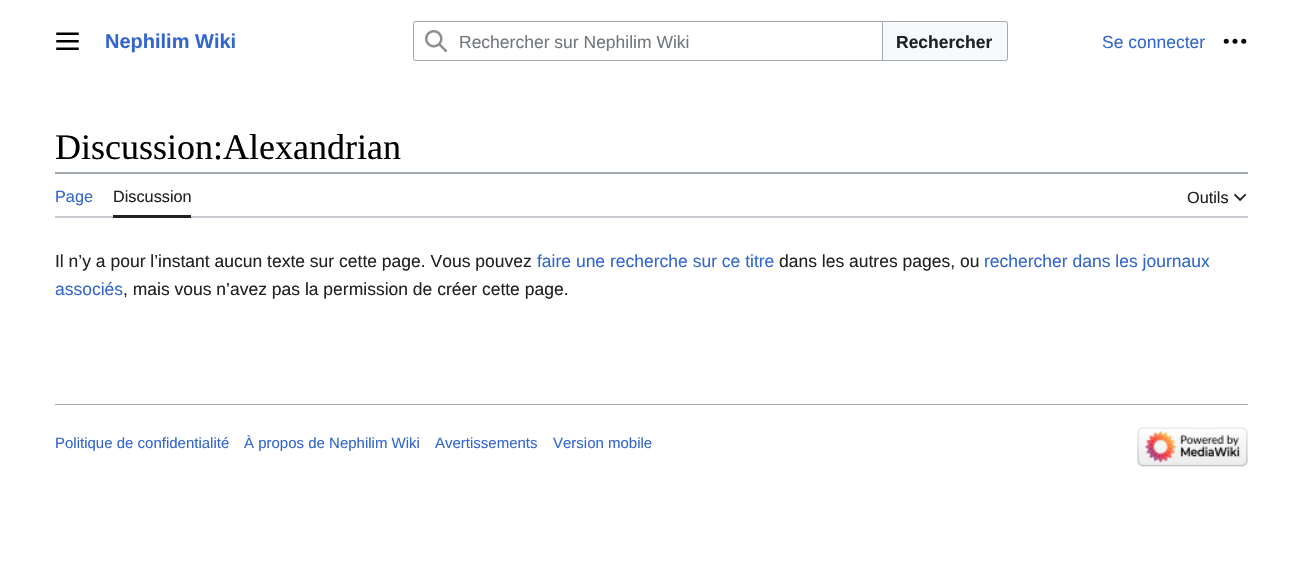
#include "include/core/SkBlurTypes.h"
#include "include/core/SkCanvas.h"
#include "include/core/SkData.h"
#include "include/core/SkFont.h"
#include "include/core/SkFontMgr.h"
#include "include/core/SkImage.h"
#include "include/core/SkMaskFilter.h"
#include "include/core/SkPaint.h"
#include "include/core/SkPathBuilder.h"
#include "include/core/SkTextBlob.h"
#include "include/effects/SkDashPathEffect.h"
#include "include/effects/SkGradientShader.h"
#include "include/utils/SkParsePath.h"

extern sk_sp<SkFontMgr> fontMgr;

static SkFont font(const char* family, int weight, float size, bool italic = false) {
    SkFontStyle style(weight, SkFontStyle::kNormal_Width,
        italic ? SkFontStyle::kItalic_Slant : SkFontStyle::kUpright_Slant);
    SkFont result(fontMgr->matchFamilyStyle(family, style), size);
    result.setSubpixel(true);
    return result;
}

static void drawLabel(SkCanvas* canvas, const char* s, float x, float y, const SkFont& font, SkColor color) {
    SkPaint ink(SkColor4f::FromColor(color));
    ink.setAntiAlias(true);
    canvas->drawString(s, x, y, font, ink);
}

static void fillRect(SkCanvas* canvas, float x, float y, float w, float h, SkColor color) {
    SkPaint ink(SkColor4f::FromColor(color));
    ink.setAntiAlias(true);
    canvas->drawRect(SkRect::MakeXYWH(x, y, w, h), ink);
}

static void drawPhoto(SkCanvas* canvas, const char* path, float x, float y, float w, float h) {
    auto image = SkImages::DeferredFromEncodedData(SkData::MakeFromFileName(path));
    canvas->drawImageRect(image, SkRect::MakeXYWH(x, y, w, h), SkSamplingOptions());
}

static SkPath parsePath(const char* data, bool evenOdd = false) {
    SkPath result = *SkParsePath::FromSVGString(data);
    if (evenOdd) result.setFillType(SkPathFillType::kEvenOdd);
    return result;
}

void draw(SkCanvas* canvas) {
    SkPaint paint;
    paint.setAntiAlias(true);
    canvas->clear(0xFFFFFFFF);
    drawPhoto(canvas, "assets/img1.png", 56, 32, 23, 18);
    SkFont font1 = font("Liberation Sans", 700, 20);
    drawLabel(canvas, "Nephilim Wiki", 105, 48, font1, 0xFF3366CC);
    paint.setStroke(true);
    paint.setStrokeWidth(1);
    paint.setColor(0xFFA2A9B1);
    canvas->drawRoundRect(SkRect::MakeXYWH(413.5f, 21.5f, 594, 39), 2, 2, paint);
    paint.setStroke(false);
    paint.setColor(0xFFF8F9FA);
    canvas->drawPath(parsePath("M881.5 21.5H1005.5C1006.5 21.5 1007.5 22.5 1007.5 23.5V58.5C1007.5 59.5 1006.5 60.5 1005.5 60.5H881.5Z"), paint);
    paint.setStroke(true);
    paint.setColor(0xFFA2A9B1);
    canvas->drawPath(parsePath("M881.5 21.5H1005.5C1006.5 21.5 1007.5 22.5 1007.5 23.5V58.5C1007.5 59.5 1006.5 60.5 1005.5 60.5H881.5Z"), paint);
    paint.setStroke(false);
    paint.setColor(0xFFFFFFFF);
    canvas->drawPath(parsePath("M415.5 21.5H882.5V60.5H415.5C414.5 60.5 413.5 59.5 413.5 58.5V23.5C413.5 22.5 414.5 21.5 415.5 21.5Z"), paint);
    paint.setStroke(true);
    paint.setColor(0xFFA2A9B1);
    canvas->drawPath(parsePath("M415.5 21.5H882.5V60.5H415.5C414.5 60.5 413.5 59.5 413.5 58.5V23.5C413.5 22.5 414.5 21.5 415.5 21.5Z"), paint);
    drawPhoto(canvas, "assets/img2.png", 425, 30, 23, 23);
    canvas->save();
    canvas->clipRect(SkRect::MakeXYWH(459, 31, 412, 20));
    SkFont font2 = font("Liberation Sans", 400, 17.5f);
    drawLabel(canvas, "Rechercher sur Nephilim Wiki", 459, 48, font2, 0xFF72777D);
    canvas->restore();
    SkFont font3 = font("Liberation Sans", 700, 17.5f);
    drawLabel(canvas, "Rechercher", 896, 48, font3, 0xFF202122);
    drawLabel(canvas, "Se connecter", 1102, 48, font2, 0xFF3366CC);
    drawPhoto(canvas, "assets/img3.png", 1223, 38, 24, 6);
    paint.setStroke(false);
    canvas->drawPath(parsePath("M55 172V174H1248V124V172Z"), paint);
    SkFont font4 = font("Liberation Serif", 400, 36);
    drawLabel(canvas, "Discussion:Alexandrian", 55, 159, font4, 0xFF000000);
    paint.setColor(0xFFC8CCD1);
    canvas->drawPath(parsePath("M55 216V218H1248V174V216Z"), paint);
    SkFont font5 = font("Liberation Sans", 400, 16.25f);
    drawLabel(canvas, "Page", 55, 202, font5, 0xFF3366CC);
    fillRect(canvas, 113, 215, 78, 3, 0xFF202122);
    drawLabel(canvas, "Discussion", 113, 202, font5, 0xFF202122);
    drawLabel(canvas, "Outils", 1187, 203, font5, 0xFF202122);
    drawPhoto(canvas, "assets/img4.png", 1234, 193, 13, 9);
    drawLabel(canvas, "Il n’y a pour l’instant aucun texte sur cette page. Vous pouvez", 55, 267, font2, 0xFF202122);
    drawLabel(canvas, "faire une recherche sur ce titre", 537, 267, font2, 0xFF3366CC);
    drawLabel(canvas, "dans les autres pages, ou", 779, 267, font2, 0xFF202122);
    drawLabel(canvas, "rechercher dans les journaux", 984, 267, font2, 0xFF3366CC);
    drawLabel(canvas, "associés", 55, 295, font2, 0xFF3366CC);
    drawLabel(canvas, ", mais vous n’avez pas la permission de créer cette page.", 123, 295, font2, 0xFF202122);
    fillRect(canvas, 55, 404, 1193, 1, 0xFFA2A9B1);
    SkFont font6 = font("Liberation Sans", 400, 15);
    drawLabel(canvas, "Politique de confidentialité", 55, 448, font6, 0xFF3366CC);
    drawLabel(canvas, "À propos de Nephilim Wiki", 244, 448, font6, 0xFF3366CC);
    drawLabel(canvas, "Avertissements", 435, 448, font6, 0xFF3366CC);
    drawLabel(canvas, "Version mobile", 553, 448, font6, 0xFF3366CC);
    drawPhoto(canvas, "assets/img5.png", 1137, 427, 111, 40);
}
